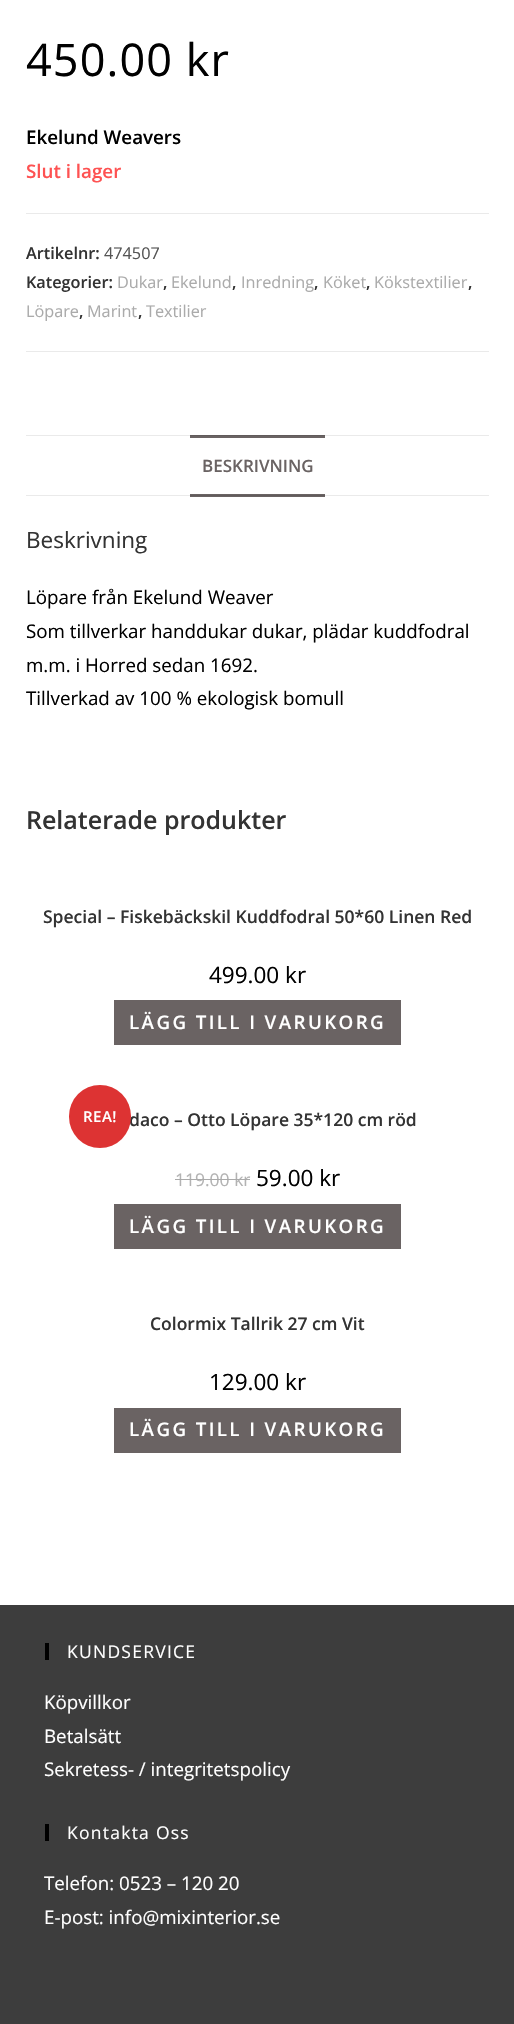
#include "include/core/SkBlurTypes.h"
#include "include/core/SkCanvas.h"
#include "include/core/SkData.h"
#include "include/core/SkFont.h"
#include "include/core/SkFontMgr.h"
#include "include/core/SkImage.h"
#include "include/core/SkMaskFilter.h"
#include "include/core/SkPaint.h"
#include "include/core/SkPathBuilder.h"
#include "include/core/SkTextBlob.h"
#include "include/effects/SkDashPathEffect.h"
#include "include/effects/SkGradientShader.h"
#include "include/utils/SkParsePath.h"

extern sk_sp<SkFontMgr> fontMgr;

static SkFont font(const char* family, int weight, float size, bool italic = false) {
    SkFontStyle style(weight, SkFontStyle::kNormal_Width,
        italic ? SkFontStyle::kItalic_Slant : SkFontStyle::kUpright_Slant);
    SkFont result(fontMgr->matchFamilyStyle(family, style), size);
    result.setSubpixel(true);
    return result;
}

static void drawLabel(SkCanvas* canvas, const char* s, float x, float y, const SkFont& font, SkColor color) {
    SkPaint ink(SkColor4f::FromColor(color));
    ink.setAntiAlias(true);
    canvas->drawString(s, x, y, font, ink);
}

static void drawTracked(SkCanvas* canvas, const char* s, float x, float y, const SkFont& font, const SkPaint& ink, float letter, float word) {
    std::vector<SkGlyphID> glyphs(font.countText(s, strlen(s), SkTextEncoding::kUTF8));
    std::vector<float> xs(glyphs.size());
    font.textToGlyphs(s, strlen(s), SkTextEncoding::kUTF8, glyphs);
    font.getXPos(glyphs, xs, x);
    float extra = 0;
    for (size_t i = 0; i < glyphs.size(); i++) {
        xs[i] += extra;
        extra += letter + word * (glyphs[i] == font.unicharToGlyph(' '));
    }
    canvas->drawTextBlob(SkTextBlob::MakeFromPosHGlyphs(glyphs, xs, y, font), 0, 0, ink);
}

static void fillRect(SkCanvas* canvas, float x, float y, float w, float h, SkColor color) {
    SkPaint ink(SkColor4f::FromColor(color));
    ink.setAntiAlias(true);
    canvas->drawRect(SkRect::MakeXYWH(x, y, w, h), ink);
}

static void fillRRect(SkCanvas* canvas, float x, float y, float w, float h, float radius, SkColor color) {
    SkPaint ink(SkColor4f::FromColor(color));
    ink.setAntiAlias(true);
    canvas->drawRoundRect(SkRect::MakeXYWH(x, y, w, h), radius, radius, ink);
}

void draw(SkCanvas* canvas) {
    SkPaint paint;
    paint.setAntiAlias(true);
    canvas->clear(0xFFFFFFFF);
    fillRect(canvas, 190, 494, 135, 3, 0xFF6A6363);
    fillRect(canvas, 190, 436, 135, 2, 0xFF6A6363);
    SkFont font1 = font("Open Sans", 400, 45);
    paint.setColor(0xFF000000);
    drawTracked(canvas, "450.00 kr", 26, 76, font1, paint, 1.1f, 0);
    SkFont font2 = font("Open Sans", 600, 18.75f);
    drawLabel(canvas, "Ekelund Weavers", 26, 144, font2, 0xFF000000);
    drawLabel(canvas, "Slut i lager", 26, 178, font2, 0xFFFE5252);
    fillRect(canvas, 26, 213, 463, 1, 0xFFEAEAEA);
    fillRect(canvas, 26, 351, 463, 1, 0xFFEAEAEA);
    SkFont font3 = font("Open Sans", 600, 16.25f);
    drawLabel(canvas, "Artikelnr:", 26, 259, font3, 0xFF333333);
    SkFont font4 = font("Open Sans", 400, 16.25f);
    drawLabel(canvas, "474507", 104, 259, font4, 0xFF555555);
    drawLabel(canvas, "Kategorier:", 26, 288, font3, 0xFF333333);
    drawLabel(canvas, "Dukar", 117, 288, font4, 0xFFABABAB);
    drawLabel(canvas, ",", 163, 288, font3, 0xFF333333);
    drawLabel(canvas, "Ekelund", 171, 288, font4, 0xFFABABAB);
    drawLabel(canvas, ",", 232, 288, font3, 0xFF333333);
    drawLabel(canvas, "Inredning", 241, 288, font4, 0xFFABABAB);
    drawLabel(canvas, ",", 314, 288, font3, 0xFF333333);
    drawLabel(canvas, "Köket", 323, 288, font4, 0xFFABABAB);
    drawLabel(canvas, ",", 366, 288, font3, 0xFF333333);
    drawLabel(canvas, "Kökstextilier", 374, 288, font4, 0xFFABABAB);
    drawLabel(canvas, ",", 468, 288, font3, 0xFF333333);
    drawLabel(canvas, "Löpare", 26, 317, font4, 0xFFABABAB);
    drawLabel(canvas, ",", 79, 317, font3, 0xFF333333);
    drawLabel(canvas, "Marint", 87, 317, font4, 0xFFABABAB);
    drawLabel(canvas, ",", 138, 317, font3, 0xFF333333);
    drawLabel(canvas, "Textilier", 146, 317, font4, 0xFFABABAB);
    fillRect(canvas, 26, 435, 463, 1, 0xFFEAEAEA);
    fillRect(canvas, 190, 435, 135, 1, 0xFF615B5B);
    fillRect(canvas, 26, 495, 463, 1, 0xFFEAEAEA);
    fillRect(canvas, 190, 495, 135, 1, 0xFF615B5B);
    SkFont font5 = font("Open Sans", 600, 17);
    drawLabel(canvas, "BESKRIVNING", 202, 472, font5, 0xFF6A6363);
    SkFont font6 = font("Open Sans", 400, 22.5f);
    drawLabel(canvas, "Beskrivning", 26, 548, font6, 0xFF333333);
    SkFont font7 = font("Open Sans", 400, 18.75f);
    drawLabel(canvas, "Löpare från Ekelund Weaver", 26, 604, font7, 0xFF000000);
    drawLabel(canvas, "Som tillverkar handdukar dukar, plädar kuddfodral", 26, 638, font7, 0xFF000000);
    drawLabel(canvas, "m.m. i Horred sedan 1692.", 26, 672, font7, 0xFF000000);
    drawLabel(canvas, "Tillverkad av 100 % ekologisk bomull", 26, 705, font7, 0xFF000000);
    SkFont font8 = font("Open Sans", 600, 25);
    drawLabel(canvas, "Relaterade produkter", 26, 829, font8, 0xFF333333);
    SkFont font9 = font("Open Sans", 600, 17.5f);
    drawLabel(canvas, "Special – Fiskebäckskil Kuddfodral 50*60 Linen Red", 43, 923, font9, 0xFF333333);
    drawLabel(canvas, "499.00 kr", 209, 983, font6, 0xFF000000);
    fillRect(canvas, 114, 1000, 287, 45, 0xFF6A6363);
    paint.setColor(0xFFFFFFFF);
    drawTracked(canvas, "LÄGG TILL I VARUKORG", 129, 1029, font2, paint, 2.4f, 0);
    drawLabel(canvas, "daco – Otto Löpare 35*120 cm röd", 129, 1126, font9, 0xFF333333);
    fillRRect(canvas, 69, 1085, 62, 63, 31, 0xFFDD3333);
    SkFont font10 = font("Open Sans", 600, 15);
    drawTracked(canvas, "REA!", 83, 1122, font10, paint, 0.5f, 0);
    SkFont font11 = font("Open Sans", 400, 17.5f);
    drawLabel(canvas, "119.00 kr", 175, 1186, font11, 0xFFB3B3B3);
    fillRect(canvas, 175, 1179, 75, 1, 0xFFAAAAAA);
    drawLabel(canvas, "59.00 kr", 256, 1186, font6, 0xFF000000);
    fillRect(canvas, 114, 1204, 287, 45, 0xFF6A6363);
    drawTracked(canvas, "LÄGG TILL I VARUKORG", 129, 1233, font2, paint, 2.4f, 0);
    drawLabel(canvas, "Colormix Tallrik 27 cm Vit", 150, 1330, font9, 0xFF333333);
    drawLabel(canvas, "129.00 kr", 209, 1390, font6, 0xFF000000);
    fillRect(canvas, 114, 1408, 287, 45, 0xFF6A6363);
    drawTracked(canvas, "LÄGG TILL I VARUKORG", 129, 1436, font2, paint, 2.4f, 0);
    fillRect(canvas, 0, 1605, 514, 419, 0xFF3D3D3D);
    fillRect(canvas, 45, 1643, 4, 17, 0xFF000000);
    drawTracked(canvas, "KUNDSERVICE", 67, 1658, font11, paint, 1.25f, 0);
    drawLabel(canvas, "Köpvillkor", 44, 1709, font7, 0xFFFFFFFF);
    drawLabel(canvas, "Betalsätt", 44, 1743, font7, 0xFFFFFFFF);
    drawLabel(canvas, "Sekretess- / integritetspolicy", 44, 1776, font7, 0xFFFFFFFF);
    fillRect(canvas, 45, 1824, 4, 17, 0xFF000000);
    drawTracked(canvas, "Kontakta Oss", 67, 1839, font11, paint, 1.25f, 0);
    drawLabel(canvas, "Telefon: 0523 – 120 20", 44, 1890, font7, 0xFFFFFFFF);
    drawLabel(canvas, "E-post: info@mixinterior.se", 44, 1924, font7, 0xFFFFFFFF);
}
